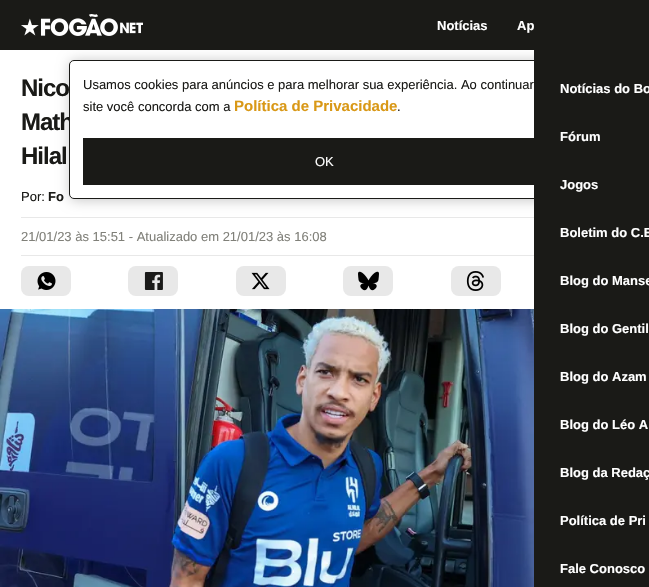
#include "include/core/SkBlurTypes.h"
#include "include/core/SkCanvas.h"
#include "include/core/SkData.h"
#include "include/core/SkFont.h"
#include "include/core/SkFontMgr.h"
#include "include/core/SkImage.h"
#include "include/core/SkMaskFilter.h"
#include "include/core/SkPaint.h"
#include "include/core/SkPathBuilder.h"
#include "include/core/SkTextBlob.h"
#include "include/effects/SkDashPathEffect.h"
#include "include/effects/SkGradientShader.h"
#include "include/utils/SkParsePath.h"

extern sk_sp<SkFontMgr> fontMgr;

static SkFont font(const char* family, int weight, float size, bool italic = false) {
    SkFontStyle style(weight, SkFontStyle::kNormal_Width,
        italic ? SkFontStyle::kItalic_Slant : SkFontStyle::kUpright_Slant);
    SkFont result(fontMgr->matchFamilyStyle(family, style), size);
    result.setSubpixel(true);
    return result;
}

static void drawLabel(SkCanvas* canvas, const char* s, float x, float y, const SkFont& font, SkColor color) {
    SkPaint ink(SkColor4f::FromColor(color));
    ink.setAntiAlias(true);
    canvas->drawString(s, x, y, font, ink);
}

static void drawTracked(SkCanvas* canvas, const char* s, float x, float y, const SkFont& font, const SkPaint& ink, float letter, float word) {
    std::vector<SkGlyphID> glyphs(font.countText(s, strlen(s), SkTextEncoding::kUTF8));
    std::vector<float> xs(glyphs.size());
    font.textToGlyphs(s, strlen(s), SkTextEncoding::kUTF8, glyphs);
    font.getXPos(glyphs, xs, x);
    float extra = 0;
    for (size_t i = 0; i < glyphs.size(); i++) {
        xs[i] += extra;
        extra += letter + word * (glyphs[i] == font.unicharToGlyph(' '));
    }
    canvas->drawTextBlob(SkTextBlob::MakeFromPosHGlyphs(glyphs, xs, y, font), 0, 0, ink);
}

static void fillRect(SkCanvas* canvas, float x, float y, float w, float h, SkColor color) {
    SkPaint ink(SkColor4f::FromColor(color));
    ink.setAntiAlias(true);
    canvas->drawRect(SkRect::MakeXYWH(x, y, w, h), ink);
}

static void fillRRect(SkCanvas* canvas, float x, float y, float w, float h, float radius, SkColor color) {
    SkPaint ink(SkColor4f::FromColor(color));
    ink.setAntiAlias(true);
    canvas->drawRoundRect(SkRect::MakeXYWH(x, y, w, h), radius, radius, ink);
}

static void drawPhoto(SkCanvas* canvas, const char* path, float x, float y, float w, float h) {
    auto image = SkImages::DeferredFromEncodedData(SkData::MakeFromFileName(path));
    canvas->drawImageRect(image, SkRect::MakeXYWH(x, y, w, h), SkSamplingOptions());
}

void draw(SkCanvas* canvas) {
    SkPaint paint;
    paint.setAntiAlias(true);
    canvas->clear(0xFFFFFFFF);
    SkFont font1 = font("Liberation Sans", 700, 24);
    paint.setColor(0xFF1A1A17);
    drawTracked(canvas, "Nico", 21, 96, font1, paint, -1, 0);
    drawTracked(canvas, "Math", 21, 130, font1, paint, -1, 0);
    drawTracked(canvas, "Hilal", 21, 164, font1, paint, -1, 0);
    SkFont font2 = font("Liberation Sans", 400, 13);
    drawLabel(canvas, "Por:", 21, 201, font2, 0xFF1A1A17);
    SkFont font3 = font("Liberation Sans", 700, 13);
    drawLabel(canvas, "Fo", 48, 201, font3, 0xFF1A1A17);
    fillRect(canvas, 21, 217, 513, 1, 0xFFE8E8E8);
    fillRect(canvas, 21, 255, 513, 1, 0xFFE8E8E8);
    drawLabel(canvas, "21/01/23 às 15:51 - Atualizado em 21/01/23 às 16:08", 21, 241, font2, 0xFF808079);
    fillRRect(canvas, 21, 266, 50, 30, 8, 0xFFE8E8E8);
    drawPhoto(canvas, "assets/img1.png", 37, 272, 19, 18);
    fillRRect(canvas, 128, 266, 50, 30, 8, 0xFFE8E8E8);
    drawPhoto(canvas, "assets/img2.png", 144, 272, 19, 18);
    fillRRect(canvas, 236, 266, 50, 30, 8, 0xFFE8E8E8);
    drawPhoto(canvas, "assets/img3.png", 251, 272, 19, 18);
    fillRRect(canvas, 343, 266, 50, 30, 8, 0xFFE8E8E8);
    drawPhoto(canvas, "assets/img4.png", 358, 271, 21, 20);
    fillRRect(canvas, 451, 266, 50, 30, 8, 0xFFE8E8E8);
    drawPhoto(canvas, "assets/img5.png", 466, 271, 18, 20);
    drawPhoto(canvas, "assets/img6.png", 0, 309, 534, 278);
    paint.setColor(0x3B000000);
    paint.setMaskFilter(SkMaskFilter::MakeBlur(kNormal_SkBlurStyle, 6.5f));
    canvas->drawRoundRect(SkRect::MakeXYWH(70, 61, 512, 139), 5, 5, paint);
    paint.setMaskFilter(nullptr);
    fillRect(canvas, 0, 0, 534, 50, 0xFF1A1A17);
    drawPhoto(canvas, "assets/img7.png", 21, 14, 122, 22);
    drawLabel(canvas, "Notícias", 437, 30, font3, 0xFFFFFFFF);
    drawLabel(canvas, "Ap", 517, 30, font3, 0xFFFFFFFF);
    paint.setColor(0xFFFFFFFF);
    canvas->drawRoundRect(SkRect::MakeXYWH(69.5f, 60.5f, 511, 138), 4.5f, 4.5f, paint);
    paint.setStroke(true);
    paint.setStrokeWidth(1);
    paint.setColor(0xFF1A1A17);
    canvas->drawRoundRect(SkRect::MakeXYWH(69.5f, 60.5f, 511, 138), 4.5f, 4.5f, paint);
    fillRect(canvas, 534, 0, 115, 587, 0xFF1A1A17);
    drawLabel(canvas, "Notícias do Bo", 560, 93, font3, 0xFFFFFFFF);
    drawLabel(canvas, "Fórum", 560, 141, font3, 0xFFFFFFFF);
    drawLabel(canvas, "Jogos", 560, 189, font3, 0xFFFFFFFF);
    drawLabel(canvas, "Boletim do C.E", 560, 237, font3, 0xFFFFFFFF);
    drawLabel(canvas, "Blog do Manse", 560, 285, font3, 0xFFFFFFFF);
    drawLabel(canvas, "Blog do Gentil", 560, 333, font3, 0xFFFFFFFF);
    drawLabel(canvas, "Blog do Azam", 560, 381, font3, 0xFFFFFFFF);
    drawLabel(canvas, "Blog do Léo A", 560, 429, font3, 0xFFFFFFFF);
    drawLabel(canvas, "Blog da Redaç", 560, 477, font3, 0xFFFFFFFF);
    drawLabel(canvas, "Política de Pri", 560, 525, font3, 0xFFFFFFFF);
    drawLabel(canvas, "Fale Conosco", 560, 573, font3, 0xFFFFFFFF);
    drawLabel(canvas, "Usamos cookies para anúncios e para melhorar sua experiência. Ao continuar", 83, 89, font2, 0xFF1A1A17);
    drawLabel(canvas, "site você concorda com a", 83, 111, font2, 0xFF1A1A17);
    SkFont font4 = font("Liberation Sans", 700, 15);
    drawLabel(canvas, "Política de Privacidade", 234, 111, font4, 0xFFD99816);
    drawLabel(canvas, ".", 397, 111, font2, 0xFF1A1A17);
    fillRect(canvas, 83, 138, 451, 47, 0xFF1A1A17);
    drawLabel(canvas, "OK", 315, 166, font2, 0xFFFFFFFF);
}
